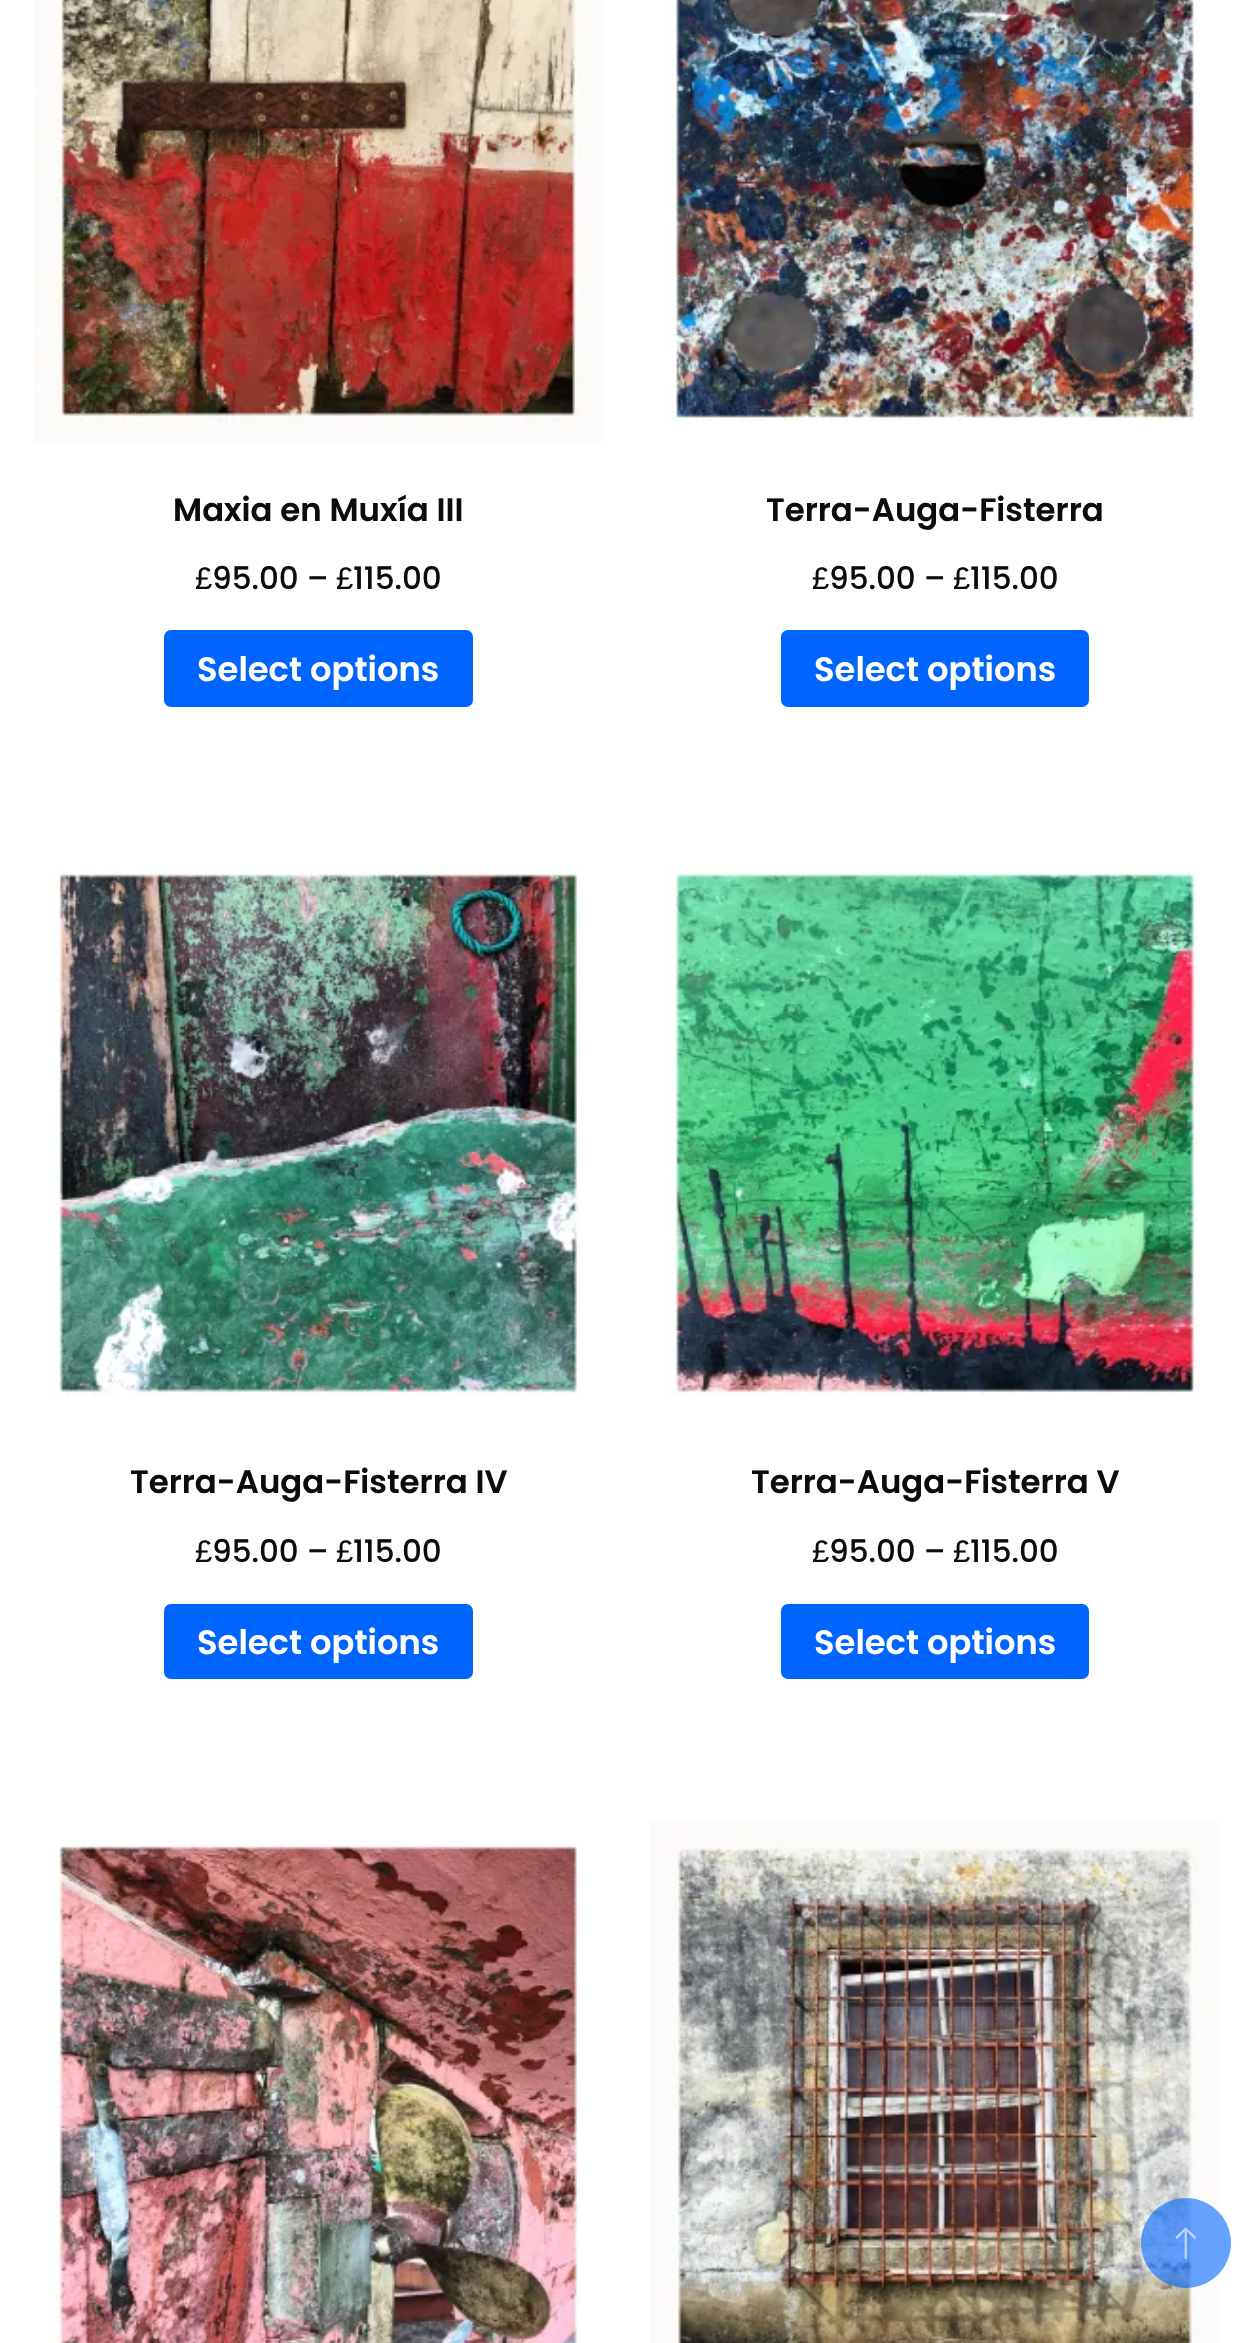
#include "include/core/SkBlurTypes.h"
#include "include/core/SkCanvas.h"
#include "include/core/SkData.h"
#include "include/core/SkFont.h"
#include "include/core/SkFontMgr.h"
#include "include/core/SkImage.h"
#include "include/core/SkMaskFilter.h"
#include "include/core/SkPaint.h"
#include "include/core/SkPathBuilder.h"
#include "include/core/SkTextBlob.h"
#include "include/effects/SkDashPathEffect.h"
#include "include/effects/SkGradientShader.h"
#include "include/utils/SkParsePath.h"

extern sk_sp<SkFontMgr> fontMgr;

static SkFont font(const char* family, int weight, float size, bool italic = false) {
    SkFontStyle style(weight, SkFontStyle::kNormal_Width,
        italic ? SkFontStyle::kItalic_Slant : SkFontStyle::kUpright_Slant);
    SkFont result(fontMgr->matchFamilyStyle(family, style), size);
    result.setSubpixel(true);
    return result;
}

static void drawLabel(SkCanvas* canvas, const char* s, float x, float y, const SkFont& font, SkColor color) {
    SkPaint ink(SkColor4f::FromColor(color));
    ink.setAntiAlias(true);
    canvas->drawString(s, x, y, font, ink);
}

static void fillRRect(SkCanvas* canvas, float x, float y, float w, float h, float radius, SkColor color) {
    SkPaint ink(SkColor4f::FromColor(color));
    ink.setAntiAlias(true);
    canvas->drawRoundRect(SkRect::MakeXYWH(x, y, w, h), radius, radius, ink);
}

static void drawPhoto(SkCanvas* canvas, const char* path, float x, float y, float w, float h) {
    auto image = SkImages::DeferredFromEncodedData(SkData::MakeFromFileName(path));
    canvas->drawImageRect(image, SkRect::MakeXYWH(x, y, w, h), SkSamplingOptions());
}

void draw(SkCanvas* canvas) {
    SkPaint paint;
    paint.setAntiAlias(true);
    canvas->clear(0xFFFFFFFF);
    drawPhoto(canvas, "assets/img1.png", 34, 0, 569, 443);
    SkFont font1 = font("Poppins", 600, 32.4f);
    drawLabel(canvas, "Maxia en Muxía III", 173, 521, font1, 0xFF0C0C0C);
    SkFont font2 = font("Liberation Sans", 400, 31);
    drawLabel(canvas, "£", 195, 589, font2, 0xFF0C0C0C);
    SkFont font3 = font("Poppins", 500, 31);
    drawLabel(canvas, "95.00 –", 212, 589, font3, 0xFF0C0C0C);
    drawLabel(canvas, "£", 336, 589, font2, 0xFF0C0C0C);
    drawLabel(canvas, "115.00", 353, 589, font3, 0xFF0C0C0C);
    fillRRect(canvas, 164, 630, 309, 77, 7, 0xFF0064FF);
    SkFont font4 = font("Poppins", 600, 33.75f);
    drawLabel(canvas, "Select options", 197, 681, font4, 0xFFFFFFFF);
    drawPhoto(canvas, "assets/img2.png", 665, 0, 533, 422);
    drawLabel(canvas, "Terra-Auga-Fisterra", 766, 521, font1, 0xFF0C0C0C);
    drawLabel(canvas, "£", 812, 589, font2, 0xFF0C0C0C);
    drawLabel(canvas, "95.00 –", 829, 589, font3, 0xFF0C0C0C);
    drawLabel(canvas, "£", 953, 589, font2, 0xFF0C0C0C);
    drawLabel(canvas, "115.00", 970, 589, font3, 0xFF0C0C0C);
    fillRRect(canvas, 781, 630, 308, 77, 7, 0xFF0064FF);
    drawLabel(canvas, "Select options", 814, 681, font4, 0xFFFFFFFF);
    drawPhoto(canvas, "assets/img3.png", 49, 864, 532, 532);
    drawLabel(canvas, "Terra-Auga-Fisterra IV", 130, 1493, font1, 0xFF0C0C0C);
    drawLabel(canvas, "£", 195, 1562, font2, 0xFF0C0C0C);
    drawLabel(canvas, "95.00 –", 212, 1562, font3, 0xFF0C0C0C);
    drawLabel(canvas, "£", 336, 1562, font2, 0xFF0C0C0C);
    drawLabel(canvas, "115.00", 353, 1562, font3, 0xFF0C0C0C);
    fillRRect(canvas, 164, 1604, 309, 75, 7, 0xFF0064FF);
    drawLabel(canvas, "Select options", 197, 1654, font4, 0xFFFFFFFF);
    drawPhoto(canvas, "assets/img4.png", 665, 864, 532, 532);
    drawLabel(canvas, "Terra-Auga-Fisterra V", 751, 1493, font1, 0xFF0C0C0C);
    drawLabel(canvas, "£", 812, 1562, font2, 0xFF0C0C0C);
    drawLabel(canvas, "95.00 –", 829, 1562, font3, 0xFF0C0C0C);
    drawLabel(canvas, "£", 953, 1562, font2, 0xFF0C0C0C);
    drawLabel(canvas, "115.00", 970, 1562, font3, 0xFF0C0C0C);
    fillRRect(canvas, 781, 1604, 308, 75, 7, 0xFF0064FF);
    drawLabel(canvas, "Select options", 814, 1654, font4, 0xFFFFFFFF);
    drawPhoto(canvas, "assets/img5.png", 49, 1843, 532, 500);
    drawPhoto(canvas, "assets/img6.png", 650, 1821, 569, 522);
    paint.setColor(0x990064FF);
    canvas->drawCircle(1186, 2243, 45, paint);
    drawPhoto(canvas, "assets/img7.png", 1175, 2227, 21, 32);
}
